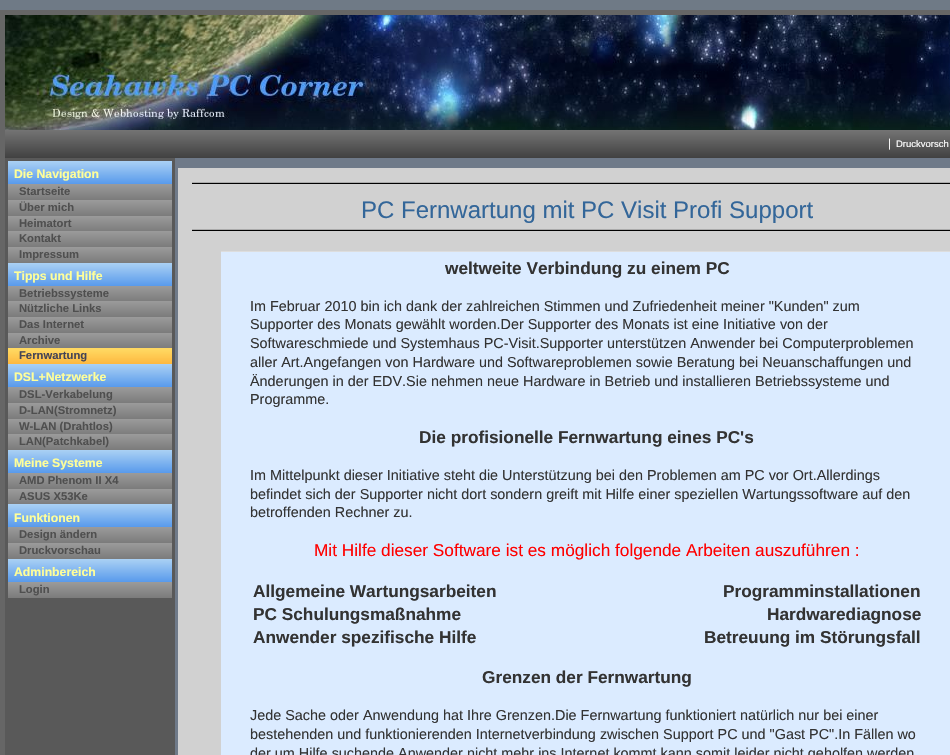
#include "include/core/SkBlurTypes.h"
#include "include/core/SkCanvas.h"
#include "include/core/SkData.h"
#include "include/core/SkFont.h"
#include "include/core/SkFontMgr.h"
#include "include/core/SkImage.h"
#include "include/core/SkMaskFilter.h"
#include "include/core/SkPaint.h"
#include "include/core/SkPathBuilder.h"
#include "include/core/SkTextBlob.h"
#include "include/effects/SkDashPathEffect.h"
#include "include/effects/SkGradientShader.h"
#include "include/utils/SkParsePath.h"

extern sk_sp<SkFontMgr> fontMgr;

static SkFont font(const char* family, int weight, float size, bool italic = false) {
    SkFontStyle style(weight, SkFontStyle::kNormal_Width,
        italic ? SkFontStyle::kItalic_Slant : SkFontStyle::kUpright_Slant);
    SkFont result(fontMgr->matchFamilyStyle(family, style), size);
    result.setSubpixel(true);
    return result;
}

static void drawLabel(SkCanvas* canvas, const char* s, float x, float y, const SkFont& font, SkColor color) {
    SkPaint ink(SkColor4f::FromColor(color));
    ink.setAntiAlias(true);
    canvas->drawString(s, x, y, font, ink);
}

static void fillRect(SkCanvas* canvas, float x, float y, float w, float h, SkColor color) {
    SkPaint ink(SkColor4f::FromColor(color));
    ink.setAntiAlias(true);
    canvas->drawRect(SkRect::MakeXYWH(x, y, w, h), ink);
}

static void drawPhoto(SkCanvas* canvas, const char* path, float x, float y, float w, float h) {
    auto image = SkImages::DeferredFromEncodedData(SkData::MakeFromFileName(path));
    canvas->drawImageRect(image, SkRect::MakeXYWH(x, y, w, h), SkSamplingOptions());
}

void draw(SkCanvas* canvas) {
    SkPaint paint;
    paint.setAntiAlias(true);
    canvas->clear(0xFF6F7A86);
    fillRect(canvas, 5, 158, 170, 597, 0xFF595959);
    paint.setStroke(true);
    paint.setStrokeWidth(5);
    paint.setColor(0xFF666666);
    canvas->drawRect(SkRect::MakeXYWH(2.5f, 12.5f, 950, 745), paint);
    drawPhoto(canvas, "assets/img1.png", 5, 15, 945, 115);
    drawPhoto(canvas, "assets/img2.png", 5, 130, 945, 28);
    SkFont font1 = font("Liberation Sans", 400, 11.25f);
    drawLabel(canvas, "|", 888, 147, font1, 0xFFFFFFFF);
    SkFont font2 = font("Liberation Sans", 400, 9.5f);
    drawLabel(canvas, "Druckvorsch", 896, 147, font2, 0xFFFFFFFF);
    drawPhoto(canvas, "assets/img3.png", 8, 161, 164, 23);
    SkFont font3 = font("Liberation Sans", 700, 12.25f);
    drawLabel(canvas, "Die Navigation", 14, 178, font3, 0xFFFFFF99);
    drawPhoto(canvas, "assets/img4.png", 8, 184, 164, 16);
    SkFont font4 = font("Liberation Sans", 700, 11.25f);
    drawLabel(canvas, "Startseite", 19, 195, font4, 0xFF4F4F4F);
    drawPhoto(canvas, "assets/img4.png", 8, 200, 164, 16);
    drawLabel(canvas, "Über mich", 19, 211, font4, 0xFF4F4F4F);
    drawPhoto(canvas, "assets/img5.png", 8, 216, 164, 15);
    drawLabel(canvas, "Heimatort", 19, 227, font4, 0xFF4F4F4F);
    drawPhoto(canvas, "assets/img4.png", 8, 231, 164, 16);
    drawLabel(canvas, "Kontakt", 19, 242, font4, 0xFF4F4F4F);
    drawPhoto(canvas, "assets/img4.png", 8, 247, 164, 16);
    drawLabel(canvas, "Impressum", 19, 258, font4, 0xFF4F4F4F);
    drawPhoto(canvas, "assets/img3.png", 8, 263, 164, 23);
    drawLabel(canvas, "Tipps und Hilfe", 14, 280, font3, 0xFFFFFF99);
    drawPhoto(canvas, "assets/img5.png", 8, 286, 164, 15);
    drawLabel(canvas, "Betriebssysteme", 19, 297, font4, 0xFF4F4F4F);
    drawPhoto(canvas, "assets/img4.png", 8, 301, 164, 16);
    drawLabel(canvas, "Nützliche Links", 19, 312, font4, 0xFF4F4F4F);
    drawPhoto(canvas, "assets/img4.png", 8, 317, 164, 16);
    drawLabel(canvas, "Das Internet", 19, 328, font4, 0xFF4F4F4F);
    drawPhoto(canvas, "assets/img5.png", 8, 333, 164, 15);
    drawLabel(canvas, "Archive", 19, 344, font4, 0xFF4F4F4F);
    drawPhoto(canvas, "assets/img6.png", 8, 348, 164, 16);
    drawLabel(canvas, "Fernwartung", 19, 359, font4, 0xFF444455);
    drawPhoto(canvas, "assets/img3.png", 8, 364, 164, 23);
    drawLabel(canvas, "DSL+Netzwerke", 14, 381, font3, 0xFFFFFF99);
    drawPhoto(canvas, "assets/img4.png", 8, 387, 164, 16);
    drawLabel(canvas, "DSL-Verkabelung", 19, 398, font4, 0xFF4F4F4F);
    drawPhoto(canvas, "assets/img4.png", 8, 403, 164, 16);
    drawLabel(canvas, "D-LAN(Stromnetz)", 19, 414, font4, 0xFF4F4F4F);
    drawPhoto(canvas, "assets/img5.png", 8, 419, 164, 15);
    drawLabel(canvas, "W-LAN (Drahtlos)", 19, 430, font4, 0xFF4F4F4F);
    drawPhoto(canvas, "assets/img4.png", 8, 434, 164, 16);
    drawLabel(canvas, "LAN(Patchkabel)", 19, 445, font4, 0xFF4F4F4F);
    drawPhoto(canvas, "assets/img3.png", 8, 450, 164, 23);
    drawLabel(canvas, "Meine Systeme", 14, 467, font3, 0xFFFFFF99);
    drawPhoto(canvas, "assets/img4.png", 8, 473, 164, 16);
    drawLabel(canvas, "AMD Phenom II X4", 19, 484, font4, 0xFF4F4F4F);
    drawPhoto(canvas, "assets/img5.png", 8, 489, 164, 15);
    drawLabel(canvas, "ASUS X53Ke", 19, 500, font4, 0xFF4F4F4F);
    drawPhoto(canvas, "assets/img3.png", 8, 504, 164, 23);
    drawLabel(canvas, "Funktionen", 14, 522, font3, 0xFFFFFF99);
    drawPhoto(canvas, "assets/img4.png", 8, 527, 164, 16);
    drawLabel(canvas, "Design ändern", 19, 538, font4, 0xFF4F4F4F);
    drawPhoto(canvas, "assets/img4.png", 8, 543, 164, 16);
    drawLabel(canvas, "Druckvorschau", 19, 554, font4, 0xFF4F4F4F);
    drawPhoto(canvas, "assets/img3.png", 8, 559, 164, 23);
    drawLabel(canvas, "Adminbereich", 14, 576, font3, 0xFFFFFF99);
    drawPhoto(canvas, "assets/img4.png", 8, 582, 164, 16);
    drawLabel(canvas, "Login", 19, 593, font4, 0xFF4F4F4F);
    fillRect(canvas, 175, 158, 775, 597, 0xFF6F7A89);
    fillRect(canvas, 178, 168, 772, 587, 0xFFD1D1D1);
    fillRect(canvas, 192, 183, 758, 1, 0xFF000000);
    fillRect(canvas, 192, 182, 758, 1, 0xFFAAAAAA);
    SkFont font5 = font("Liberation Sans", 400, 24);
    drawLabel(canvas, "PC Fernwartung mit PC Visit Profi Support", 361, 218, font5, 0xFF336699);
    fillRect(canvas, 192, 230, 758, 1, 0xFF000000);
    fillRect(canvas, 192, 229, 758, 1, 0xFFAAAAAA);
    fillRect(canvas, 221, 252, 729, 503, 0xFFDBEBFF);
    fillRect(canvas, 221, 251, 729, 1, 0xFFDDDDDD);
    SkFont font6 = font("Liberation Sans", 700, 17.25f);
    drawLabel(canvas, "weltweite Verbindung zu einem PC", 445, 274, font6, 0xFF333333);
    SkFont font7 = font("Liberation Sans", 400, 14.4f);
    drawLabel(canvas, "Im Februar 2010 bin ich dank der zahlreichen Stimmen und Zufriedenheit meiner \"Kunden\" zum", 250, 311, font7, 0xFF333333);
    drawLabel(canvas, "Supporter des Monats gewählt worden.Der Supporter des Monats ist eine Initiative von der", 250, 329, font7, 0xFF333333);
    drawLabel(canvas, "Softwareschmiede und Systemhaus PC-Visit.Supporter unterstützen Anwender bei Computerproblemen", 250, 348, font7, 0xFF333333);
    drawLabel(canvas, "aller Art.Angefangen von Hardware und Softwareproblemen sowie Beratung bei Neuanschaffungen und", 250, 367, font7, 0xFF333333);
    drawLabel(canvas, "Änderungen in der EDV.Sie nehmen neue Hardware in Betrieb und installieren Betriebssysteme und", 250, 386, font7, 0xFF333333);
    drawLabel(canvas, "Programme.", 250, 404, font7, 0xFF333333);
    drawLabel(canvas, "Die profisionelle Fernwartung eines PC's", 419, 443, font6, 0xFF333333);
    drawLabel(canvas, "Im Mittelpunkt dieser Initiative steht die Unterstützung bei den Problemen am PC vor Ort.Allerdings", 250, 480, font7, 0xFF333333);
    drawLabel(canvas, "befindet sich der Supporter nicht dort sondern greift mit Hilfe einer speziellen Wartungssoftware auf den", 250, 499, font7, 0xFF333333);
    drawLabel(canvas, "betroffenden Rechner zu.", 250, 517, font7, 0xFF333333);
    SkFont font8 = font("Liberation Sans", 400, 17.25f);
    drawLabel(canvas, "Mit Hilfe dieser Software ist es möglich folgende Arbeiten auszuführen :", 314, 556, font8, 0xFFFF0000);
    drawLabel(canvas, "Allgemeine Wartungsarbeiten", 253, 597, font6, 0xFF333333);
    drawLabel(canvas, "Programminstallationen", 723, 597, font6, 0xFF333333);
    drawLabel(canvas, "PC Schulungsmaßnahme", 253, 620, font6, 0xFF333333);
    drawLabel(canvas, "Hardwarediagnose", 767, 620, font6, 0xFF333333);
    drawLabel(canvas, "Anwender spezifische Hilfe", 253, 643, font6, 0xFF333333);
    drawLabel(canvas, "Betreuung im Störungsfall", 704, 643, font6, 0xFF333333);
    drawLabel(canvas, "Grenzen der Fernwartung", 482, 683, font6, 0xFF333333);
    drawLabel(canvas, "Jede Sache oder Anwendung hat Ihre Grenzen.Die Fernwartung funktioniert natürlich nur bei einer", 250, 720, font7, 0xFF333333);
    drawLabel(canvas, "bestehenden und funktionierenden Internetverbindung zwischen Support PC und \"Gast PC\".In Fällen wo", 250, 739, font7, 0xFF333333);
    drawLabel(canvas, "der um Hilfe suchende Anwender nicht mehr ins Internet kommt kann somit leider nicht geholfen werden", 250, 758, font7, 0xFF333333);
}
